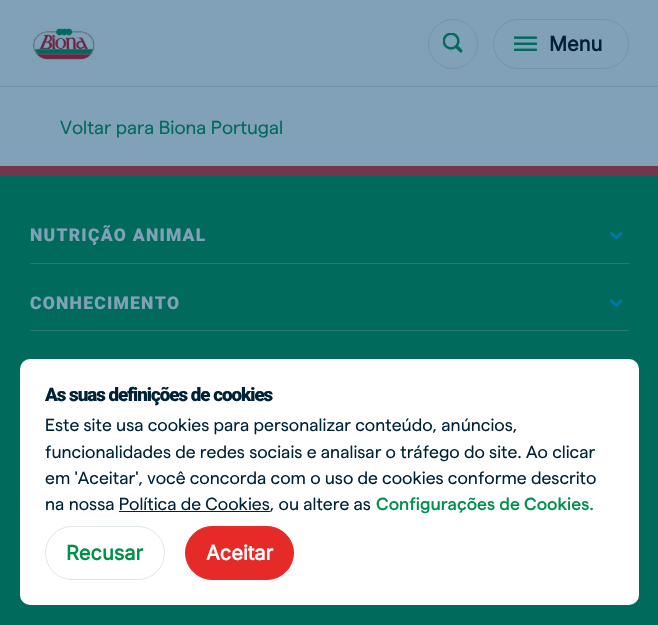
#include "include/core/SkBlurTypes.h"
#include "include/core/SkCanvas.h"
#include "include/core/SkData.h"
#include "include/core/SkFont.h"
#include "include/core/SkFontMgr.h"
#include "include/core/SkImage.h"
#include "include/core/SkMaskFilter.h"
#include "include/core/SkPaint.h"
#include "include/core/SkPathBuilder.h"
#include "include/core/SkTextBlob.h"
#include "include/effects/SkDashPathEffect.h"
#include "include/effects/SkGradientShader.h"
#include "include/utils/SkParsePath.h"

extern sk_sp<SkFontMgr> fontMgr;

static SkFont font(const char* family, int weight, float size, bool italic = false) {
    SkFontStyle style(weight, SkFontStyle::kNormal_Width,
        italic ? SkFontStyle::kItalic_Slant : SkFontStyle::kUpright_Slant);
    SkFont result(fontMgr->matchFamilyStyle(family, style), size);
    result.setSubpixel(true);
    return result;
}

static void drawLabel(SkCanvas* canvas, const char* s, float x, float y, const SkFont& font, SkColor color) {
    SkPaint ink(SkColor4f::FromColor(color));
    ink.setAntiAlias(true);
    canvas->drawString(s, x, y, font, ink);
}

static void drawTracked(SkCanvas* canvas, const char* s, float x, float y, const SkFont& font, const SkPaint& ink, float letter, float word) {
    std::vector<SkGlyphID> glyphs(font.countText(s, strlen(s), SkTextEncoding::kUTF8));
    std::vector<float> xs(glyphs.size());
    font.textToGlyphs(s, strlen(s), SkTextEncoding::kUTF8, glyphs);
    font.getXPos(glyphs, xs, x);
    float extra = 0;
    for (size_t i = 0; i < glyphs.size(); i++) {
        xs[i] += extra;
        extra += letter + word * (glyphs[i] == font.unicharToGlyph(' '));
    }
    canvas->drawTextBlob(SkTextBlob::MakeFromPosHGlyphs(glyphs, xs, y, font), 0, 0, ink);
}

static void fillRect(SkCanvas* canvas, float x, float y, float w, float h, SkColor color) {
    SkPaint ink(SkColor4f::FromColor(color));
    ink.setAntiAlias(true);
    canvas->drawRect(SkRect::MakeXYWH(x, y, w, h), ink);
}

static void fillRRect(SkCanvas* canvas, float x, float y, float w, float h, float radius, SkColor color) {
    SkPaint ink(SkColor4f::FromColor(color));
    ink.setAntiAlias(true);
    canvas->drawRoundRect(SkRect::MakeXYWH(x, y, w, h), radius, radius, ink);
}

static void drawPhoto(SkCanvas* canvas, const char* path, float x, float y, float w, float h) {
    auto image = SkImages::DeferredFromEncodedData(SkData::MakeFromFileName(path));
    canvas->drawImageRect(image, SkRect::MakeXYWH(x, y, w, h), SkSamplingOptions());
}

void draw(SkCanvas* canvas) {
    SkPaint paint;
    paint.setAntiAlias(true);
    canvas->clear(0xFF80A1B7);
    fillRect(canvas, 0, 86, 658, 1, 0xFF7095AB);
    drawPhoto(canvas, "assets/img1.png", 31, 27, 65, 36);
    paint.setStroke(true);
    paint.setStrokeWidth(1);
    paint.setColor(0xFF7095AB);
    canvas->drawCircle(453, 44, 24.5f, paint);
    drawPhoto(canvas, "assets/img2.png", 443, 33, 20, 20);
    canvas->drawRoundRect(SkRect::MakeXYWH(493.5f, 19.5f, 135, 49), 24.5f, 24.5f, paint);
    drawPhoto(canvas, "assets/img3.png", 514, 36, 23, 15);
    SkFont font1 = font("Inter", 700, 20);
    drawLabel(canvas, "Menu", 549, 51, font1, 0xFF002237);
    SkFont font2 = font("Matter", 400, 18.75f);
    drawLabel(canvas, "Voltar para Biona Portugal", 60, 134, font2, 0xFF006A5C);
    fillRect(canvas, 0, 176, 658, 449, 0xFF006A5C);
    fillRect(canvas, 0, 166, 658, 10, 0xFF73374B);
    SkFont font3 = font("Roboto", 900, 17.5f);
    paint.setStroke(false);
    paint.setColor(0xFF80A1B7);
    drawTracked(canvas, "NUTRIÇÃO ANIMAL", 30, 241, font3, paint, 1.25f, 0);
    drawPhoto(canvas, "assets/img4.png", 609, 231, 14, 9);
    fillRect(canvas, 30, 263, 599, 1, 0xFF277A77);
    drawTracked(canvas, "CONHECIMENTO", 30, 309, font3, paint, 1.25f, 0);
    drawPhoto(canvas, "assets/img5.png", 609, 299, 14, 8);
    fillRect(canvas, 30, 330, 599, 1, 0xFF277A77);
    fillRRect(canvas, 20, 359, 619, 246, 10, 0xFFFFFFFF);
    SkFont font4 = font("Roboto", 900, 18.75f);
    paint.setColor(0xFF002237);
    drawTracked(canvas, "As suas definições de cookies", 45, 401, font4, paint, -1, 0);
    SkFont font5 = font("Matter", 400, 17.5f);
    drawLabel(canvas, "Este site usa cookies para personalizar conteúdo, anúncios,", 45, 431, font5, 0xFF002237);
    drawLabel(canvas, "funcionalidades de redes sociais e analisar o tráfego do site. Ao clicar", 45, 458, font5, 0xFF002237);
    drawLabel(canvas, "em 'Aceitar', você concorda com o uso de cookies conforme descrito", 45, 484, font5, 0xFF002237);
    drawLabel(canvas, "na nossa Política de Cookies, ou altere as", 45, 510, font5, 0xFF002237);
    SkFont font6 = font("Matter", 500, 17.5f);
    drawLabel(canvas, "Configurações de Cookies.", 376, 510, font6, 0xFF00904A);
    fillRect(canvas, 119, 511, 151, 1, 0xFF002137);
    paint.setStroke(true);
    paint.setColor(0xFFDFE6E8);
    canvas->drawRoundRect(SkRect::MakeXYWH(45.5f, 526.5f, 119, 53), 26.5f, 26.5f, paint);
    drawLabel(canvas, "Recusar", 66, 560, font1, 0xFF00904A);
    paint.setStroke(false);
    paint.setColor(0xFFE62A27);
    canvas->drawRoundRect(SkRect::MakeXYWH(185.5f, 526.5f, 108, 53), 26.5f, 26.5f, paint);
    paint.setStroke(true);
    canvas->drawRoundRect(SkRect::MakeXYWH(185.5f, 526.5f, 108, 53), 26.5f, 26.5f, paint);
    drawLabel(canvas, "Aceitar", 206, 560, font1, 0xFFFFFFFF);
}
